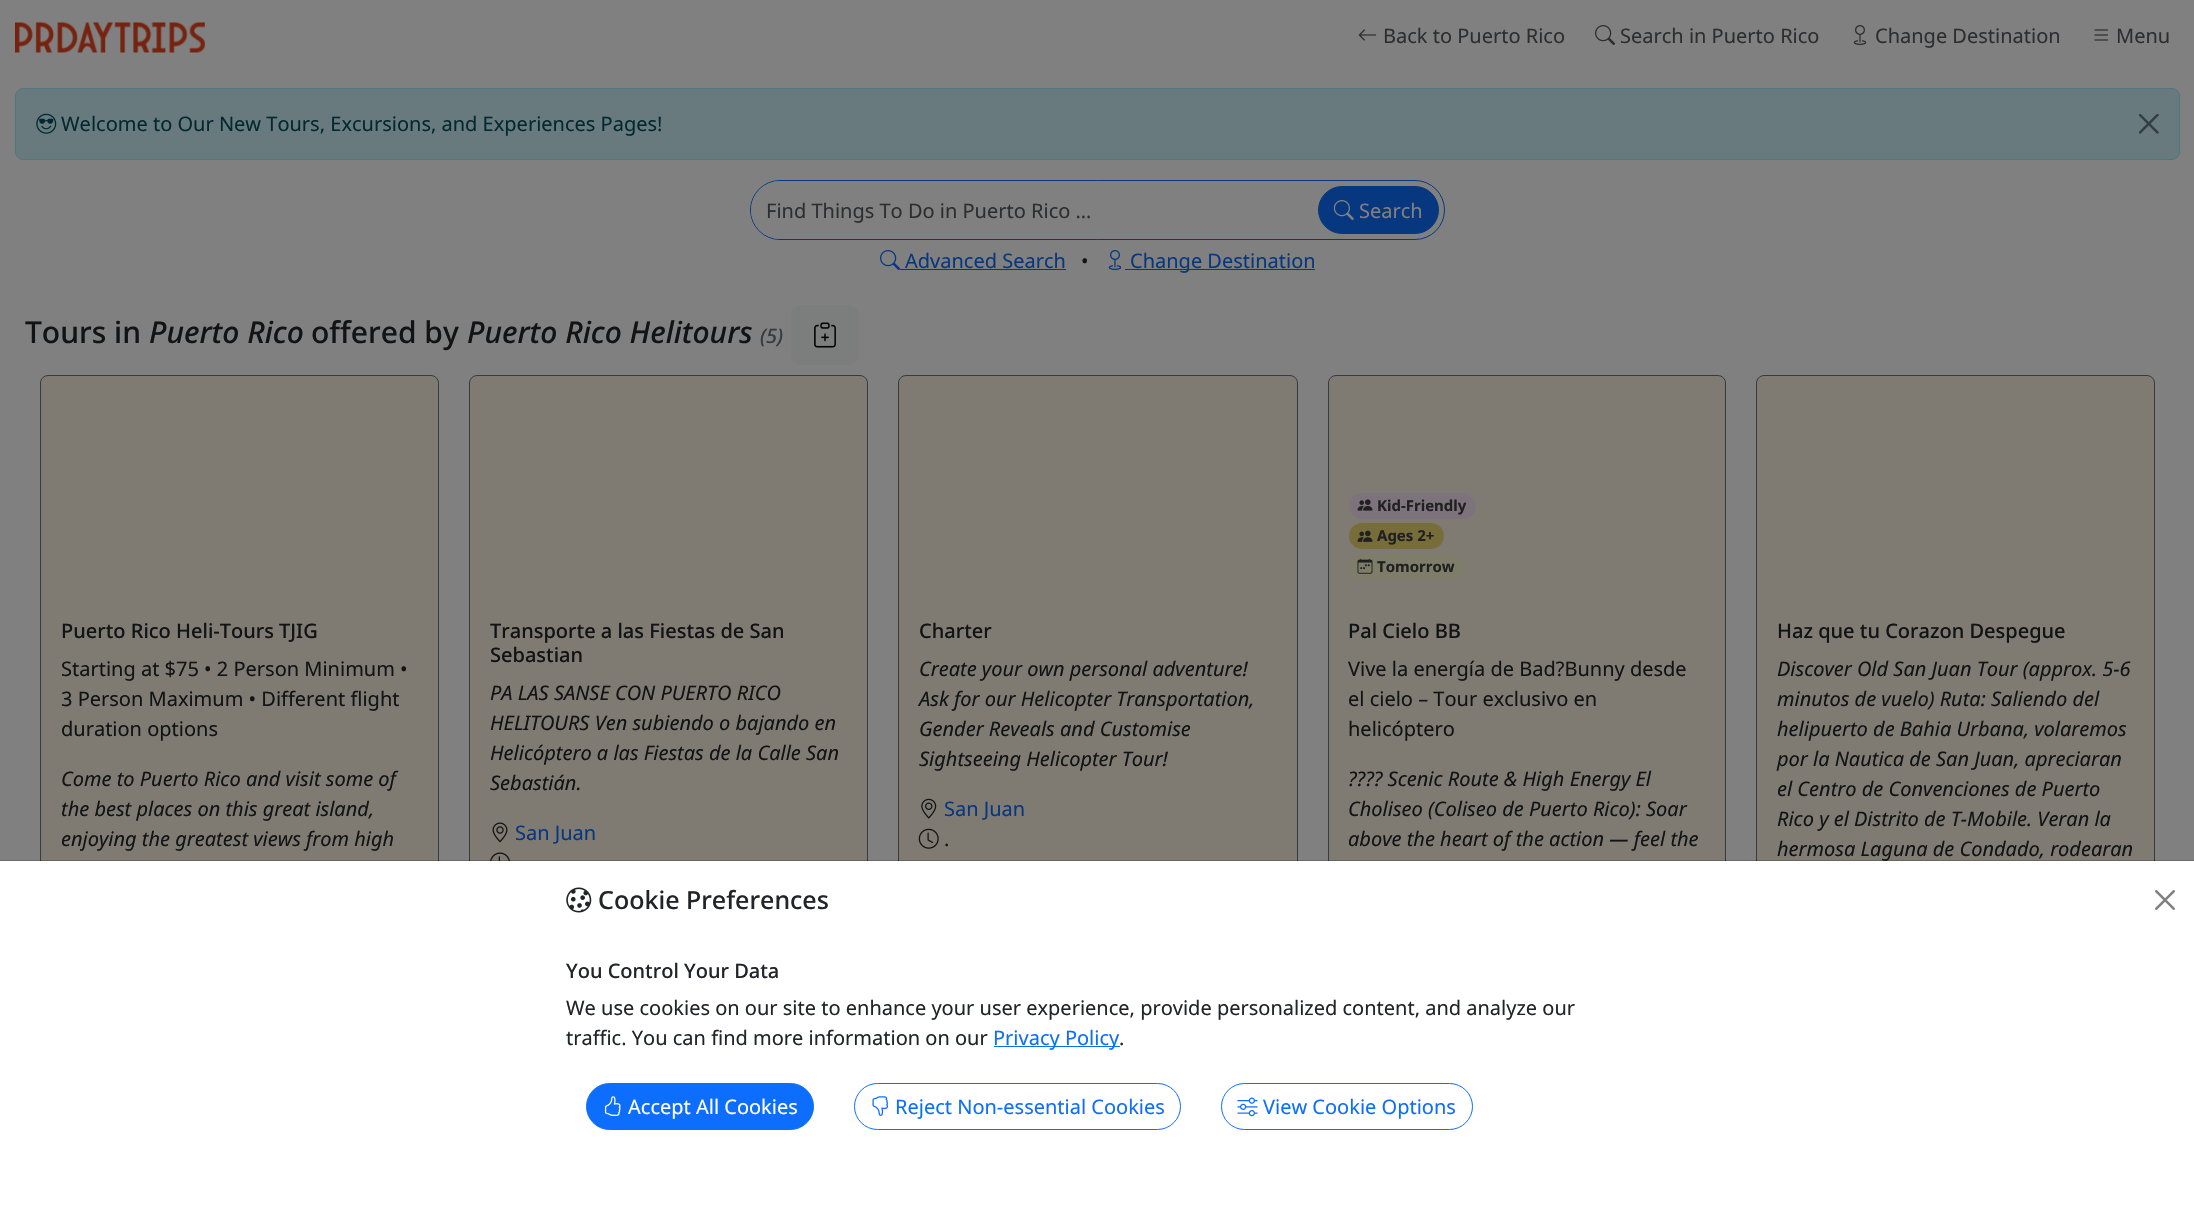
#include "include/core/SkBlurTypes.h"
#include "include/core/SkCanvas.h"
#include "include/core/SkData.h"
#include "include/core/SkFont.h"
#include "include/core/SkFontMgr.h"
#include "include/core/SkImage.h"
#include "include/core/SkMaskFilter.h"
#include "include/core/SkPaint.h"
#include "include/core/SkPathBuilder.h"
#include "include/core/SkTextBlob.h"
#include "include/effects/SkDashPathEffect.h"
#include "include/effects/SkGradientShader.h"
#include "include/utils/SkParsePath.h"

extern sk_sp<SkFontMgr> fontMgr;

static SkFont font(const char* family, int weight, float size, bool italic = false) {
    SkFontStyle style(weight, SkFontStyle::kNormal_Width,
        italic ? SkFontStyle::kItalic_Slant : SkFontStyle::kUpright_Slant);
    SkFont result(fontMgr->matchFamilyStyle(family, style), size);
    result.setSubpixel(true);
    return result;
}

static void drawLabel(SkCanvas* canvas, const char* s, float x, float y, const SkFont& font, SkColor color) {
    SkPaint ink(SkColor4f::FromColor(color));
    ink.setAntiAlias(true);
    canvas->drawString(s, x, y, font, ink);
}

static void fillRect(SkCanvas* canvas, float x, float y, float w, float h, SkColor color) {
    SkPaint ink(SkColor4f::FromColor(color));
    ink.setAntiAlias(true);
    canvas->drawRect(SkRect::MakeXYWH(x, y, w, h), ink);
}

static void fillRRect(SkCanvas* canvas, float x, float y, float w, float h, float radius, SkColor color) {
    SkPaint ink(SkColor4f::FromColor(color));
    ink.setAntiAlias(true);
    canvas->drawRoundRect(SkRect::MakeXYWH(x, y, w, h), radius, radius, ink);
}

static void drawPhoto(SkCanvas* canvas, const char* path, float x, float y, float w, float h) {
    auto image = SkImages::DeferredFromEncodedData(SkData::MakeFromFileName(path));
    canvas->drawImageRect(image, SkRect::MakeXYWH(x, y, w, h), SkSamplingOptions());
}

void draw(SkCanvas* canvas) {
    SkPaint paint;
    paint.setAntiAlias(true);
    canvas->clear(0xFF808080);
    drawPhoto(canvas, "assets/img1.png", 15, 22, 190, 31);
    drawPhoto(canvas, "assets/img2.png", 1358, 29, 19, 12);
    SkFont font1 = font("Noto Sans", 400, 20);
    drawLabel(canvas, "Back to Puerto Rico", 1383, 43, font1, 0xFF2D2E30);
    drawPhoto(canvas, "assets/img3.png", 1595, 25, 20, 20);
    drawLabel(canvas, "Search in Puerto Rico", 1620, 43, font1, 0xFF2D2E30);
    drawPhoto(canvas, "assets/img4.png", 1853, 25, 14, 20);
    drawLabel(canvas, "Change Destination", 1875, 43, font1, 0xFF2D2E30);
    drawPhoto(canvas, "assets/img5.png", 2094, 29, 14, 12);
    drawLabel(canvas, "Menu", 2116, 43, font1, 0xFF2D2E30);
    paint.setColor(0xFF687A7E);
    canvas->drawRoundRect(SkRect::MakeXYWH(15.5f, 88.5f, 2164, 71), 7.5f, 7.5f, paint);
    paint.setStroke(true);
    paint.setStrokeWidth(1);
    paint.setColor(0xFF4F757D);
    canvas->drawRoundRect(SkRect::MakeXYWH(15.5f, 88.5f, 2164, 71), 7.5f, 7.5f, paint);
    drawPhoto(canvas, "assets/img6.png", 36, 113, 21, 21);
    drawLabel(canvas, "Welcome to Our New Tours, Excursions, and Experiences Pages!", 61, 131, font1, 0xFF032930);
    drawPhoto(canvas, "assets/img7.png", 2139, 114, 20, 20);
    paint.setColor(0xFF07377F);
    canvas->drawRoundRect(SkRect::MakeXYWH(750.5f, 180.5f, 694, 59), 29.5f, 29.5f, paint);
    fillRRect(canvas, 751, 181, 562, 58, 29, 0xFF808080);
    drawLabel(canvas, "Find Things To Do in Puerto Rico …", 766, 218, font1, 0xFF2D2E30);
    paint.setStroke(false);
    canvas->drawRoundRect(SkRect::MakeXYWH(1318.5f, 186.5f, 120, 47), 23.5f, 23.5f, paint);
    paint.setStroke(true);
    canvas->drawRoundRect(SkRect::MakeXYWH(1318.5f, 186.5f, 120, 47), 23.5f, 23.5f, paint);
    drawPhoto(canvas, "assets/img8.png", 1333, 200, 21, 20);
    drawLabel(canvas, "Search", 1359, 218, font1, 0xFF808080);
    drawPhoto(canvas, "assets/img9.png", 880, 250, 20, 20);
    drawLabel(canvas, "Advanced Search", 905, 268, font1, 0xFF07377F);
    fillRect(canvas, 900, 269, 166, 1, 0xFF07377F);
    drawLabel(canvas, "•", 1081, 268, font1, 0xFF111315);
    drawPhoto(canvas, "assets/img10.png", 1108, 250, 14, 20);
    fillRect(canvas, 1125, 269, 190, 1, 0xFF07377F);
    drawLabel(canvas, "Change Destination", 1130, 268, font1, 0xFF07377F);
    SkFont font2 = font("Noto Sans", 500, 30);
    drawLabel(canvas, "Tours in", 25, 343, font2, 0xFF111315);
    SkFont font3 = font("Noto Sans", 500, 30, true);
    drawLabel(canvas, "Puerto Rico", 149, 343, font3, 0xFF111315);
    drawLabel(canvas, "offered by", 311, 343, font2, 0xFF111315);
    drawLabel(canvas, "Puerto Rico Helitours", 467, 343, font3, 0xFF111315);
    SkFont font4 = font("Noto Sans", 500, 20, true);
    drawLabel(canvas, "(5)", 760, 343, font4, 0xFF363B3F);
    fillRRect(canvas, 791, 305, 68, 60, 10, 0xFF7C7D7D);
    drawPhoto(canvas, "assets/img11.png", 814, 322, 22, 26);
    paint.setStroke(false);
    paint.setColor(0xFF7F7B73);
    canvas->drawRoundRect(SkRect::MakeXYWH(40.5f, 375.5f, 398, 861), 7.5f, 7.5f, paint);
    paint.setStroke(true);
    paint.setColor(0xFF363B3F);
    canvas->drawRoundRect(SkRect::MakeXYWH(40.5f, 375.5f, 398, 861), 7.5f, 7.5f, paint);
    SkFont font5 = font("Noto Sans", 500, 20);
    drawLabel(canvas, "Puerto Rico Heli-Tours TJIG", 61, 638, font5, 0xFF111315);
    drawLabel(canvas, "Starting at $75 • 2 Person Minimum •", 61, 676, font1, 0xFF111315);
    drawLabel(canvas, "3 Person Maximum • Different flight", 61, 706, font1, 0xFF111315);
    drawLabel(canvas, "duration options", 61, 736, font1, 0xFF111315);
    SkFont font6 = font("Noto Sans", 400, 20, true);
    drawLabel(canvas, "Come to Puerto Rico and visit some of", 61, 786, font6, 0xFF111315);
    drawLabel(canvas, "the best places on this great island,", 61, 816, font6, 0xFF111315);
    drawLabel(canvas, "enjoying the greatest views from high", 61, 846, font6, 0xFF111315);
    paint.setStroke(false);
    paint.setColor(0xFF7F7B73);
    canvas->drawRoundRect(SkRect::MakeXYWH(469.5f, 375.5f, 398, 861), 7.5f, 7.5f, paint);
    paint.setStroke(true);
    paint.setColor(0xFF363B3F);
    canvas->drawRoundRect(SkRect::MakeXYWH(469.5f, 375.5f, 398, 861), 7.5f, 7.5f, paint);
    drawLabel(canvas, "Transporte a las Fiestas de San", 490, 638, font5, 0xFF111315);
    drawLabel(canvas, "Sebastian", 490, 662, font5, 0xFF111315);
    drawLabel(canvas, "PA LAS SANSE CON PUERTO RICO", 490, 700, font6, 0xFF111315);
    drawLabel(canvas, "HELITOURS Ven subiendo o bajando en", 490, 730, font6, 0xFF111315);
    drawLabel(canvas, "Helicóptero a las Fiestas de la Calle San", 490, 760, font6, 0xFF111315);
    drawLabel(canvas, "Sebastián.", 490, 790, font6, 0xFF111315);
    drawPhoto(canvas, "assets/img12.png", 492, 822, 16, 21);
    drawLabel(canvas, "San Juan", 515, 840, font1, 0xFF07377F);
    drawPhoto(canvas, "assets/img13.png", 490, 852, 20, 9);
    paint.setStroke(false);
    paint.setColor(0xFF7F7B73);
    canvas->drawRoundRect(SkRect::MakeXYWH(898.5f, 375.5f, 399, 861), 7.5f, 7.5f, paint);
    paint.setStroke(true);
    paint.setColor(0xFF363B3F);
    canvas->drawRoundRect(SkRect::MakeXYWH(898.5f, 375.5f, 399, 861), 7.5f, 7.5f, paint);
    drawLabel(canvas, "Charter", 919, 638, font5, 0xFF111315);
    drawLabel(canvas, "Create your own personal adventure!", 919, 676, font6, 0xFF111315);
    drawLabel(canvas, "Ask for our Helicopter Transportation,", 919, 706, font6, 0xFF111315);
    drawLabel(canvas, "Gender Reveals and Customise", 919, 736, font6, 0xFF111315);
    drawLabel(canvas, "Sightseeing Helicopter Tour!", 919, 766, font6, 0xFF111315);
    drawPhoto(canvas, "assets/img14.png", 921, 798, 16, 21);
    drawLabel(canvas, "San Juan", 944, 816, font1, 0xFF07377F);
    drawPhoto(canvas, "assets/img15.png", 918, 828, 21, 21);
    drawLabel(canvas, ".", 944, 846, font1, 0xFF111315);
    paint.setStroke(false);
    paint.setColor(0xFF7F7B73);
    canvas->drawRoundRect(SkRect::MakeXYWH(1328.5f, 375.5f, 397, 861), 7.5f, 7.5f, paint);
    paint.setStroke(true);
    paint.setColor(0xFF363B3F);
    canvas->drawRoundRect(SkRect::MakeXYWH(1328.5f, 375.5f, 397, 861), 7.5f, 7.5f, paint);
    fillRRect(canvas, 1349, 493, 127, 26, 13, 0xFF7C737C);
    drawPhoto(canvas, "assets/img16.png", 1357, 499, 16, 12);
    SkFont font7 = font("Noto Sans", 700, 15);
    drawLabel(canvas, "Kid-Friendly", 1377, 511, font7, 0xFF202020);
    fillRRect(canvas, 1349, 523, 95, 26, 13, 0xFF776D3A);
    drawPhoto(canvas, "assets/img17.png", 1357, 530, 16, 12);
    drawLabel(canvas, "Ages 2+", 1377, 541, font7, 0xFF202020);
    fillRRect(canvas, 1349, 554, 115, 25, 12.5f, 0xFF7D7D69);
    drawPhoto(canvas, "assets/img18.png", 1357, 558, 16, 16);
    drawLabel(canvas, "Tomorrow", 1377, 572, font7, 0xFF202020);
    drawLabel(canvas, "Pal Cielo BB", 1348, 638, font5, 0xFF111315);
    drawLabel(canvas, "Vive la energía de Bad?Bunny desde", 1348, 676, font1, 0xFF111315);
    drawLabel(canvas, "el cielo – Tour exclusivo en", 1348, 706, font1, 0xFF111315);
    drawLabel(canvas, "helicóptero", 1348, 736, font1, 0xFF111315);
    drawLabel(canvas, "?\077?\077 Scenic Route & High Energy El", 1348, 786, font6, 0xFF111315);
    drawLabel(canvas, "Choliseo (Coliseo de Puerto Rico): Soar", 1348, 816, font6, 0xFF111315);
    drawLabel(canvas, "above the heart of the action — feel the", 1348, 846, font6, 0xFF111315);
    paint.setStroke(false);
    paint.setColor(0xFF7F7B73);
    canvas->drawRoundRect(SkRect::MakeXYWH(1756.5f, 375.5f, 398, 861), 7.5f, 7.5f, paint);
    paint.setStroke(true);
    paint.setColor(0xFF363B3F);
    canvas->drawRoundRect(SkRect::MakeXYWH(1756.5f, 375.5f, 398, 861), 7.5f, 7.5f, paint);
    drawLabel(canvas, "Haz que tu Corazon Despegue", 1777, 638, font5, 0xFF111315);
    drawLabel(canvas, "Discover Old San Juan Tour (approx. 5-6", 1777, 676, font6, 0xFF111315);
    drawLabel(canvas, "minutos de vuelo) Ruta: Saliendo del", 1777, 706, font6, 0xFF111315);
    drawLabel(canvas, "helipuerto de Bahia Urbana, volaremos", 1777, 736, font6, 0xFF111315);
    drawLabel(canvas, "por la Nautica de San Juan, apreciaran", 1777, 766, font6, 0xFF111315);
    drawLabel(canvas, "el Centro de Convenciones de Puerto", 1777, 796, font6, 0xFF111315);
    drawLabel(canvas, "Rico y el Distrito de T-Mobile. Veran la", 1777, 826, font6, 0xFF111315);
    drawLabel(canvas, "hermosa Laguna de Condado, rodearan", 1777, 856, font6, 0xFF111315);
    fillRect(canvas, 0, 861, 2194, 367, 0xFFFFFFFF);
    fillRect(canvas, 0, 860, 2194, 1, 0x2E000000);
    drawPhoto(canvas, "assets/img19.png", 566, 887, 26, 26);
    SkFont font8 = font("Noto Sans", 500, 25);
    drawLabel(canvas, "Cookie Preferences", 598, 909, font8, 0xFF212529);
    drawPhoto(canvas, "assets/img20.png", 2155, 890, 20, 20);
    drawLabel(canvas, "You Control Your Data", 566, 978, font5, 0xFF212529);
    drawLabel(canvas, "We use cookies on our site to enhance your user experience, provide personalized content, and analyze our", 566, 1015, font1, 0xFF212529);
    drawLabel(canvas, "traffic. You can find more information on our", 566, 1045, font1, 0xFF212529);
    fillRect(canvas, 994, 1046, 126, 1, 0xFF0D6EFD);
    drawLabel(canvas, "Privacy Policy", 993, 1045, font1, 0xFF0D6EFD);
    drawLabel(canvas, ".", 1119, 1045, font1, 0xFF212529);
    paint.setStroke(false);
    paint.setColor(0xFF0D6EFD);
    canvas->drawRoundRect(SkRect::MakeXYWH(586.5f, 1083.5f, 227, 46), 23, 23, paint);
    paint.setStroke(true);
    canvas->drawRoundRect(SkRect::MakeXYWH(586.5f, 1083.5f, 227, 46), 23, 23, paint);
    drawPhoto(canvas, "assets/img21.png", 604, 1096, 17, 20);
    drawLabel(canvas, "Accept All Cookies", 628, 1114, font1, 0xFFFFFFFF);
    canvas->drawRoundRect(SkRect::MakeXYWH(854.5f, 1083.5f, 326, 46), 23, 23, paint);
    drawPhoto(canvas, "assets/img22.png", 872, 1096, 16, 20);
    drawLabel(canvas, "Reject Non-essential Cookies", 895, 1114, font1, 0xFF0D6EFD);
    canvas->drawRoundRect(SkRect::MakeXYWH(1221.5f, 1083.5f, 251, 46), 23, 23, paint);
    drawPhoto(canvas, "assets/img23.png", 1237, 1097, 21, 20);
    drawLabel(canvas, "View Cookie Options", 1263, 1114, font1, 0xFF0D6EFD);
}
